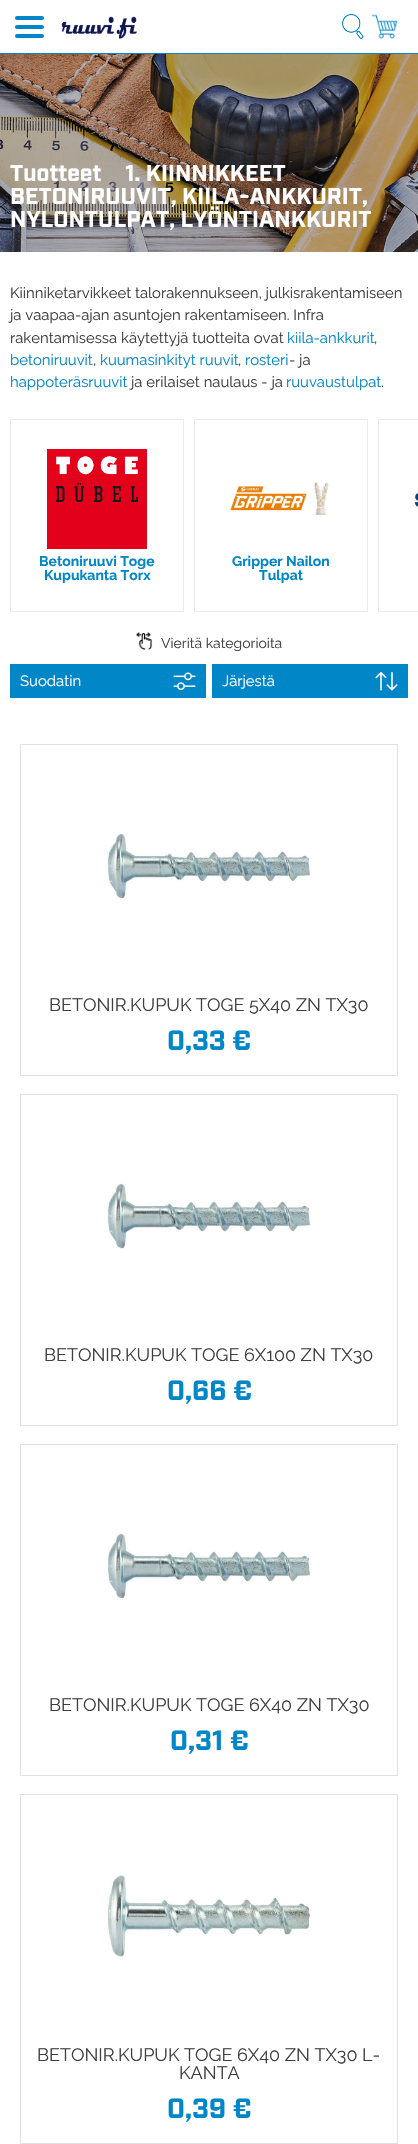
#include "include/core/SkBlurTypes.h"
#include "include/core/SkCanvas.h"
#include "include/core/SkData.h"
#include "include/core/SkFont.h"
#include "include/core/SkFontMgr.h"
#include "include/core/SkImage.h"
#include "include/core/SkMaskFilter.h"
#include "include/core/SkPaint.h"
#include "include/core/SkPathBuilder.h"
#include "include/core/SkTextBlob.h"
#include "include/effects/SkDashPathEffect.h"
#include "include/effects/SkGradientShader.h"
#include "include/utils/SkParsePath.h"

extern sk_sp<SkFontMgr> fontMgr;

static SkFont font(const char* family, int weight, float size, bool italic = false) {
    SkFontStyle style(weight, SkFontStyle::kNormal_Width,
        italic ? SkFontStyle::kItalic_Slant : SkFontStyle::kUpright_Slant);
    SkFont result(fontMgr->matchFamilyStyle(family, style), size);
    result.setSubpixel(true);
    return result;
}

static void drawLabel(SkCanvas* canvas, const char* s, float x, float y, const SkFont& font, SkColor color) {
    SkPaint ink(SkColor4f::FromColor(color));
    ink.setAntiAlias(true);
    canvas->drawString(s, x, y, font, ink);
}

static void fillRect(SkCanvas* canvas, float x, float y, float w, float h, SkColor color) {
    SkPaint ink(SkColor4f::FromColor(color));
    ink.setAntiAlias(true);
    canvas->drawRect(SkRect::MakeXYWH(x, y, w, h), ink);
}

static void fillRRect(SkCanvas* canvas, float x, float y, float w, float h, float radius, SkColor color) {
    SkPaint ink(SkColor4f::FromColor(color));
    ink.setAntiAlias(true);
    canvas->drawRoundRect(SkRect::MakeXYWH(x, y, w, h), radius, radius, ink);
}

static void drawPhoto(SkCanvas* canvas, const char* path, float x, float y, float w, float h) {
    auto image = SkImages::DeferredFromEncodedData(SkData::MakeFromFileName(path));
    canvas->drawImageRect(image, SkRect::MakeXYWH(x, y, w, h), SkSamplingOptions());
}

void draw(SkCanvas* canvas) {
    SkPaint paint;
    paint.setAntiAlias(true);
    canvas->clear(0xFFFFFFFF);
    fillRect(canvas, 0, 53, 418, 1, 0xFF0186C7);
    fillRRect(canvas, 15, 25, 29, 4, 2, 0xFF0186C7);
    fillRRect(canvas, 15, 16, 29, 4, 2, 0xFF0186C7);
    fillRRect(canvas, 15, 34, 29, 4, 2, 0xFF0186C7);
    drawPhoto(canvas, "assets/img1.png", 61, 16, 76, 23);
    drawPhoto(canvas, "assets/img2.png", 342, 14, 22, 25);
    drawPhoto(canvas, "assets/img3.png", 371, 14, 27, 25);
    drawPhoto(canvas, "assets/img4.png", 0, 54, 418, 198);
    SkFont font1 = font("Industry", 700, 23);
    drawLabel(canvas, "Tuotteet", 10, 181, font1, 0xFFFFFFFF);
    drawLabel(canvas, "1. KIINNIKKEET", 125, 181, font1, 0xFFFFFFFF);
    drawLabel(canvas, "BETONIRUUVIT, KIILA-ANKKURIT,", 10, 204, font1, 0xFFFFFFFF);
    drawLabel(canvas, "NYLONTULPAT, LYÖNTIANKKURIT", 10, 227, font1, 0xFFFFFFFF);
    SkFont font2 = font("Raleway", 400, 14.9f);
    drawLabel(canvas, "Kiinniketarvikkeet talorakennukseen, julkisrakentamiseen", 10, 298, font2, 0xFF3E3E3E);
    drawLabel(canvas, "ja vaapaa-ajan asuntojen rakentamiseen. Infra", 10, 320, font2, 0xFF3E3E3E);
    drawLabel(canvas, "rakentamisessa käytettyjä tuotteita ovat", 10, 343, font2, 0xFF3E3E3E);
    drawLabel(canvas, "kiila-ankkurit", 287, 343, font2, 0xFF0186C7);
    drawLabel(canvas, ",", 374, 343, font2, 0xFF3E3E3E);
    drawLabel(canvas, "betoniruuvit", 10, 365, font2, 0xFF0186C7);
    drawLabel(canvas, ",", 93, 365, font2, 0xFF3E3E3E);
    drawLabel(canvas, "kuumasinkityt ruuvit", 100, 365, font2, 0xFF0186C7);
    drawLabel(canvas, ",", 238, 365, font2, 0xFF3E3E3E);
    drawLabel(canvas, "rosteri", 245, 365, font2, 0xFF0186C7);
    drawLabel(canvas, "- ja", 289, 365, font2, 0xFF3E3E3E);
    drawLabel(canvas, "happoteräsruuvit", 10, 387, font2, 0xFF0186C7);
    drawLabel(canvas, "ja erilaiset naulaus - ja", 131, 387, font2, 0xFF3E3E3E);
    drawLabel(canvas, "ruuvaustulpat", 286, 387, font2, 0xFF0186C7);
    drawLabel(canvas, ".", 381, 387, font2, 0xFF3E3E3E);
    paint.setStroke(true);
    paint.setStrokeWidth(1);
    paint.setColor(0xFFEBEBEB);
    canvas->drawRect(SkRect::MakeXYWH(10.5f, 419.5f, 173, 192), paint);
    drawPhoto(canvas, "assets/img5.png", 47, 449, 100, 100);
    SkFont font3 = font("Raleway", 700, 14);
    drawLabel(canvas, "Betoniruuvi Toge", 39, 566, font3, 0xFF0186C7);
    drawLabel(canvas, "Kupukanta Torx", 44, 580, font3, 0xFF0186C7);
    canvas->drawRect(SkRect::MakeXYWH(194.5f, 419.5f, 173, 192), paint);
    drawPhoto(canvas, "assets/img6.png", 230, 482, 99, 33);
    drawLabel(canvas, "Gripper Nailon", 232, 566, font3, 0xFF0186C7);
    drawLabel(canvas, "Tulpat", 259, 580, font3, 0xFF0186C7);
    canvas->drawRect(SkRect::MakeXYWH(378.5f, 419.5f, 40, 192), paint);
    drawPhoto(canvas, "assets/img7.png", 415, 492, 3, 18);
    drawPhoto(canvas, "assets/img8.png", 136, 632, 17, 18);
    SkFont font4 = font("Raleway", 400, 14);
    drawLabel(canvas, "Vieritä kategorioita", 161, 648, font4, 0xFF3E3E3E);
    fillRect(canvas, 10, 664, 196, 34, 0xFF0186C7);
    drawLabel(canvas, "Suodatin", 20, 686, font2, 0xFFFFFFFF);
    drawPhoto(canvas, "assets/img9.png", 173, 672, 23, 18);
    fillRect(canvas, 212, 664, 196, 34, 0xFF0186C7);
    drawLabel(canvas, "Järjestä", 222, 686, font2, 0xFFFFFFFF);
    drawPhoto(canvas, "assets/img10.png", 375, 672, 23, 19);
    paint.setColor(0xFFE1E1E1);
    canvas->drawRect(SkRect::MakeXYWH(20.5f, 744.5f, 377, 331), paint);
    drawPhoto(canvas, "assets/img11.png", 107, 833, 204, 66);
    SkFont font5 = font("Raleway", 400, 18);
    drawLabel(canvas, "BETONIR.KUPUK TOGE 5X40 ZN TX30", 49, 1011, font5, 0xFF3E3E3E);
    SkFont font6 = font("Industry", 700, 28);
    drawLabel(canvas, "0,33 €", 167, 1050, font6, 0xFF0186C7);
    canvas->drawRect(SkRect::MakeXYWH(20.5f, 1094.5f, 377, 331), paint);
    drawPhoto(canvas, "assets/img11.png", 107, 1183, 204, 66);
    drawLabel(canvas, "BETONIR.KUPUK TOGE 6X100 ZN TX30", 44, 1361, font5, 0xFF3E3E3E);
    drawLabel(canvas, "0,66 €", 167, 1400, font6, 0xFF0186C7);
    canvas->drawRect(SkRect::MakeXYWH(20.5f, 1444.5f, 377, 331), paint);
    drawPhoto(canvas, "assets/img11.png", 107, 1533, 204, 66);
    drawLabel(canvas, "BETONIR.KUPUK TOGE 6X40 ZN TX30", 49, 1711, font5, 0xFF3E3E3E);
    drawLabel(canvas, "0,31 €", 170, 1750, font6, 0xFF0186C7);
    canvas->drawRect(SkRect::MakeXYWH(20.5f, 1794.5f, 377, 349), paint);
    drawPhoto(canvas, "assets/img12.png", 107, 1875, 204, 82);
    drawLabel(canvas, "BETONIR.KUPUK TOGE 6X40 ZN TX30 L-", 37, 2061, font5, 0xFF3E3E3E);
    drawLabel(canvas, "KANTA", 179, 2079, font5, 0xFF3E3E3E);
    drawLabel(canvas, "0,39 €", 167, 2118, font6, 0xFF0186C7);
}
